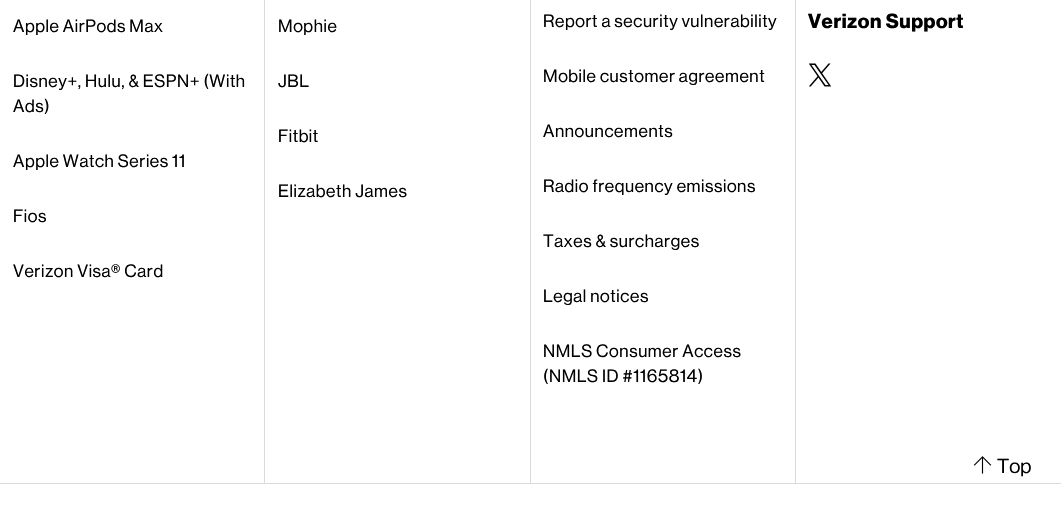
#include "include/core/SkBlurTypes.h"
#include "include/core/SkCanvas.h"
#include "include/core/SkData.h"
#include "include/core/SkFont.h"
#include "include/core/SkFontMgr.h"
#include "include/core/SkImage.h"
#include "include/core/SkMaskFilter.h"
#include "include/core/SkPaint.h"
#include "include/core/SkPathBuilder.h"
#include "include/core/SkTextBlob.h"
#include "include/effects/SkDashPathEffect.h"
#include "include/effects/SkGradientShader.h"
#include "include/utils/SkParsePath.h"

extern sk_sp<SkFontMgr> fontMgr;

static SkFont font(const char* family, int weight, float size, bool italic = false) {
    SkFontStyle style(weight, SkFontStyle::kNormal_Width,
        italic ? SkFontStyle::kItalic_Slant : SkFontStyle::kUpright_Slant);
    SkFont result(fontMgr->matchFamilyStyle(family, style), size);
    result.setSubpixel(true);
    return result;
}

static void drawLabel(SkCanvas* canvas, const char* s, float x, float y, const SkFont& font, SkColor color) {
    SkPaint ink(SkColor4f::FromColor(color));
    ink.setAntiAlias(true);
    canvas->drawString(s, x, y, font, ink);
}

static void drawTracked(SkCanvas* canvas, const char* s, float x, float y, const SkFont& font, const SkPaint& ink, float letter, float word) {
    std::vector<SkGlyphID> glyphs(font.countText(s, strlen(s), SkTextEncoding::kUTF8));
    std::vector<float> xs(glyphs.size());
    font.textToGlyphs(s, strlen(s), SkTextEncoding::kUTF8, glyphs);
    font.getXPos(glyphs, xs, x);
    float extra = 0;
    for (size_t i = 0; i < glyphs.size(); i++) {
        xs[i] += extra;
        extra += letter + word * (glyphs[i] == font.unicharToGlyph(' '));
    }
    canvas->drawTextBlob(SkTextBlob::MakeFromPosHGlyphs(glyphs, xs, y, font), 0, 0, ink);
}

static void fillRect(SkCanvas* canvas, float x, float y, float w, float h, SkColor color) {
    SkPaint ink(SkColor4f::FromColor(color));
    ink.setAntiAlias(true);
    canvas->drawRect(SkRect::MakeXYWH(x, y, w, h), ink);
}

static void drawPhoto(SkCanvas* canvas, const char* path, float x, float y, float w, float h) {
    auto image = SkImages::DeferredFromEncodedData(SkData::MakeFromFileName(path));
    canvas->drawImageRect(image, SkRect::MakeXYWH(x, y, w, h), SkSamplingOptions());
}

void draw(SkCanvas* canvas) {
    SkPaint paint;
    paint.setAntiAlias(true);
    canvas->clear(0xFFFFFFFF);
    fillRect(canvas, 264, 0, 1, 483, 0xFFD8DADA);
    SkFont font1 = font("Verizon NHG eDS", 400, 17.5f);
    paint.setColor(0xFF000000);
    drawTracked(canvas, "Apple AirPods Max", 13, 32, font1, paint, 0.6f, 0);
    drawTracked(canvas, "Disney+, Hulu, & ESPN+ (With", 13, 87, font1, paint, 0.6f, 0);
    drawTracked(canvas, "Ads)", 13, 112, font1, paint, 0.6f, 0);
    drawTracked(canvas, "Apple Watch Series 11", 13, 167, font1, paint, 0.6f, 0);
    drawTracked(canvas, "Fios", 13, 222, font1, paint, 0.6f, 0);
    drawTracked(canvas, "Verizon Visa® Card", 13, 277, font1, paint, 0.6f, 0);
    fillRect(canvas, 530, 0, 1, 483, 0xFFD8DADA);
    drawTracked(canvas, "Mophie", 278, 32, font1, paint, 0.6f, 0);
    drawTracked(canvas, "JBL", 278, 87, font1, paint, 0.6f, 0);
    drawTracked(canvas, "Fitbit", 278, 142, font1, paint, 0.6f, 0);
    drawTracked(canvas, "Elizabeth James", 278, 197, font1, paint, 0.6f, 0);
    fillRect(canvas, 795, 0, 1, 483, 0xFFD8DADA);
    drawTracked(canvas, "Report a security vulnerability", 543, 27, font1, paint, 0.6f, 0);
    drawTracked(canvas, "Mobile customer agreement", 543, 82, font1, paint, 0.6f, 0);
    drawTracked(canvas, "Announcements", 543, 137, font1, paint, 0.6f, 0);
    drawTracked(canvas, "Radio frequency emissions", 543, 192, font1, paint, 0.6f, 0);
    drawTracked(canvas, "Taxes & surcharges", 543, 247, font1, paint, 0.6f, 0);
    drawTracked(canvas, "Legal notices", 543, 302, font1, paint, 0.6f, 0);
    drawTracked(canvas, "NMLS Consumer Access", 543, 357, font1, paint, 0.6f, 0);
    drawTracked(canvas, "(NMLS ID #1165814)", 543, 382, font1, paint, 0.6f, 0);
    SkFont font2 = font("Verizon NHG eDS", 700, 20);
    drawTracked(canvas, "Verizon Support", 808, 28, font2, paint, 0.6f, 0);
    drawPhoto(canvas, "assets/img1.png", 809, 63, 22, 24);
    fillRect(canvas, 0, 483, 1061, 1, 0xFFD8DADA);
    drawPhoto(canvas, "assets/img2.png", 973, 456, 19, 18);
    SkFont font3 = font("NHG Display", 400, 20);
    drawLabel(canvas, "Top", 997, 473, font3, 0xFF000000);
}
